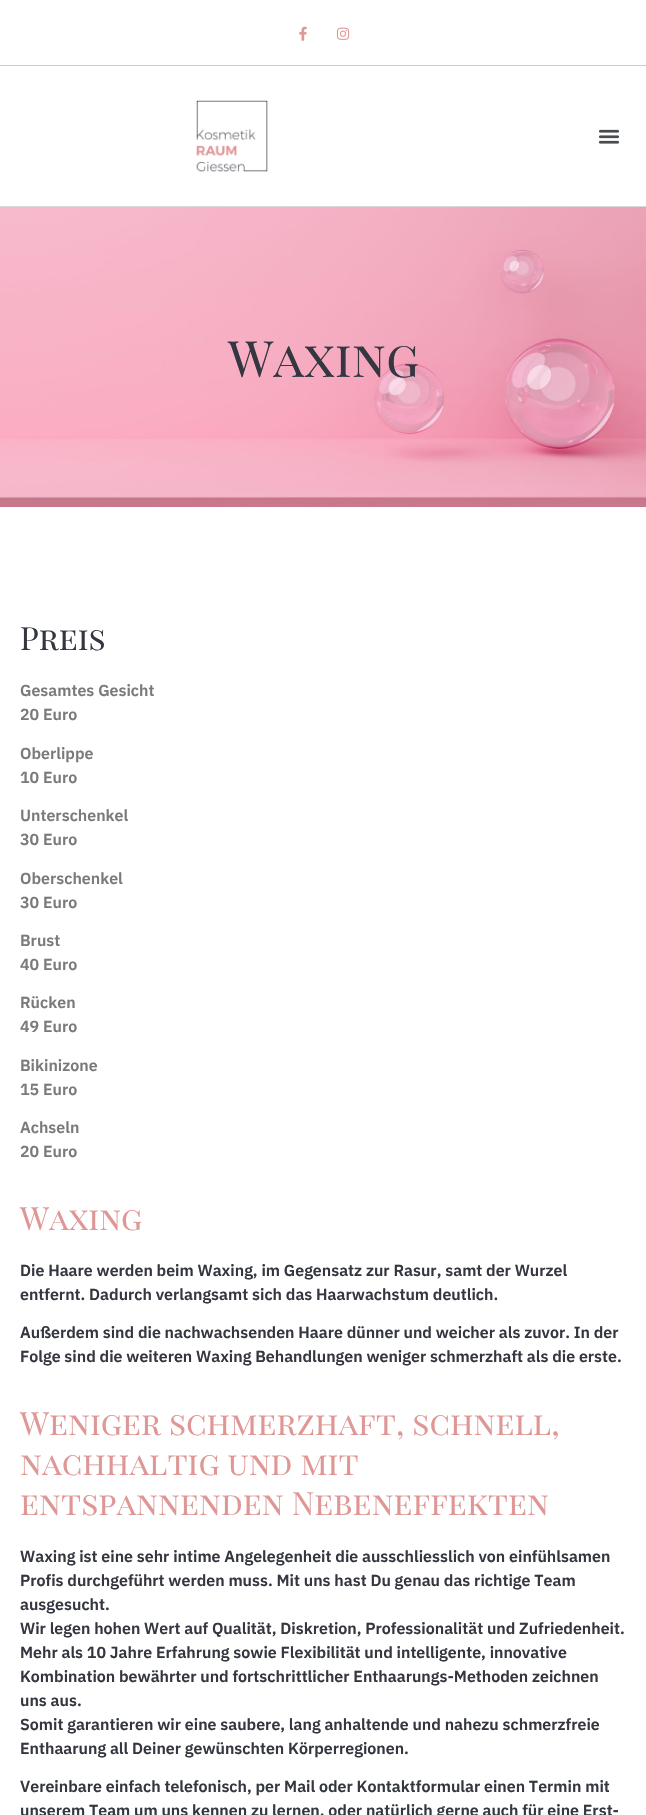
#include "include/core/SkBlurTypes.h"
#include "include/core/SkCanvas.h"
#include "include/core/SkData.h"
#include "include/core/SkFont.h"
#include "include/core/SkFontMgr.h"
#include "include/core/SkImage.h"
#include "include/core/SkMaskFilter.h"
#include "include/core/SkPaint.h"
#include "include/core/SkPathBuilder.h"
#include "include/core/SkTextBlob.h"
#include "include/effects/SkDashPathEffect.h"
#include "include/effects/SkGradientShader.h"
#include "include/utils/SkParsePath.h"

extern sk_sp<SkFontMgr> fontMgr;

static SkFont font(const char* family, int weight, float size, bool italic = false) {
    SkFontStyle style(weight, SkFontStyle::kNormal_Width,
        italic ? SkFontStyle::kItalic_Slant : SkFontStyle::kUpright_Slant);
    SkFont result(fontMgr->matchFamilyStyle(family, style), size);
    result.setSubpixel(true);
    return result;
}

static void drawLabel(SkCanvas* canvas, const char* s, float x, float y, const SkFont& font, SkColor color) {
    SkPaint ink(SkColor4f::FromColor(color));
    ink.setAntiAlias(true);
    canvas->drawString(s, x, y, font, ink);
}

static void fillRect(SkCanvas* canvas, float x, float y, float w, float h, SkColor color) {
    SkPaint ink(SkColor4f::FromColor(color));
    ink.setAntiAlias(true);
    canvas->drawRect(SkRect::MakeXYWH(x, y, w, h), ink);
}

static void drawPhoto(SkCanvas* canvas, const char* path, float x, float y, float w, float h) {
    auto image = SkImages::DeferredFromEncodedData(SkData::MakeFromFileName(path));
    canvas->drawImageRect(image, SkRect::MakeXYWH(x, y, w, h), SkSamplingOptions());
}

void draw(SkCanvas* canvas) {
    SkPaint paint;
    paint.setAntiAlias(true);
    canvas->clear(0xFFFFFFFF);
    fillRect(canvas, 0, 65, 646, 1, 0xFFCCCCCC);
    drawPhoto(canvas, "assets/img1.png", 299, 26, 8, 15);
    drawPhoto(canvas, "assets/img2.png", 336, 27, 14, 13);
    fillRect(canvas, 0, 206, 646, 1, 0xFFD8D8D8);
    drawPhoto(canvas, "assets/img3.png", 196, 100, 72, 72);
    drawPhoto(canvas, "assets/img4.png", 598, 129, 22, 15);
    drawPhoto(canvas, "assets/img5.png", 0, 207, 646, 300);
    SkFont font1 = font("Playfair Display SC", 400, 50);
    drawLabel(canvas, "Waxing", 228, 377, font1, 0xFF343740);
    SkFont font2 = font("Playfair Display SC", 400, 32);
    drawLabel(canvas, "Preis", 20, 650, font2, 0xFF343740);
    SkFont font3 = font("IBM Plex Sans", 600, 16);
    drawLabel(canvas, "Gesamtes Gesicht", 20, 696, font3, 0xFF7A7A7A);
    drawLabel(canvas, "20 Euro", 20, 720, font3, 0xFF7A7A7A);
    drawLabel(canvas, "Oberlippe", 20, 759, font3, 0xFF7A7A7A);
    drawLabel(canvas, "10 Euro", 20, 783, font3, 0xFF7A7A7A);
    drawLabel(canvas, "Unterschenkel", 20, 821, font3, 0xFF7A7A7A);
    drawLabel(canvas, "30 Euro", 20, 845, font3, 0xFF7A7A7A);
    drawLabel(canvas, "Oberschenkel", 20, 884, font3, 0xFF7A7A7A);
    drawLabel(canvas, "30 Euro", 20, 908, font3, 0xFF7A7A7A);
    drawLabel(canvas, "Brust", 20, 946, font3, 0xFF7A7A7A);
    drawLabel(canvas, "40 Euro", 20, 970, font3, 0xFF7A7A7A);
    drawLabel(canvas, "Rücken", 20, 1008, font3, 0xFF7A7A7A);
    drawLabel(canvas, "49 Euro", 20, 1032, font3, 0xFF7A7A7A);
    drawLabel(canvas, "Bikinizone", 20, 1071, font3, 0xFF7A7A7A);
    drawLabel(canvas, "15 Euro", 20, 1095, font3, 0xFF7A7A7A);
    drawLabel(canvas, "Achseln", 20, 1133, font3, 0xFF7A7A7A);
    drawLabel(canvas, "20 Euro", 20, 1157, font3, 0xFF7A7A7A);
    drawLabel(canvas, "Waxing", 20, 1230, font2, 0xFFDF9795);
    drawLabel(canvas, "Die Haare werden beim Waxing, im Gegensatz zur Rasur, samt der Wurzel", 20, 1276, font3, 0xFF343740);
    drawLabel(canvas, "entfernt. Dadurch verlangsamt sich das Haarwachstum deutlich.", 20, 1300, font3, 0xFF343740);
    drawLabel(canvas, "Außerdem sind die nachwachsenden Haare dünner und weicher als zuvor. In der", 20, 1338, font3, 0xFF343740);
    drawLabel(canvas, "Folge sind die weiteren Waxing Behandlungen weniger schmerzhaft als die erste.", 20, 1362, font3, 0xFF343740);
    drawLabel(canvas, "Weniger schmerzhaft, schnell,", 20, 1435, font2, 0xFFDF9795);
    drawLabel(canvas, "nachhaltig und mit", 20, 1475, font2, 0xFFDF9795);
    drawLabel(canvas, "entspannenden Nebeneffekten", 20, 1515, font2, 0xFFDF9795);
    drawLabel(canvas, "Waxing ist eine sehr intime Angelegenheit die ausschliesslich von einfühlsamen", 20, 1562, font3, 0xFF343740);
    drawLabel(canvas, "Profis durchgeführt werden muss. Mit uns hast Du genau das richtige Team", 20, 1586, font3, 0xFF343740);
    drawLabel(canvas, "ausgesucht.", 20, 1610, font3, 0xFF343740);
    drawLabel(canvas, "Wir legen hohen Wert auf Qualität, Diskretion, Professionalität und Zufriedenheit.", 20, 1634, font3, 0xFF343740);
    drawLabel(canvas, "Mehr als 10 Jahre Erfahrung sowie Flexibilität und intelligente, innovative", 20, 1658, font3, 0xFF343740);
    drawLabel(canvas, "Kombination bewährter und fortschrittlicher Enthaarungs-Methoden zeichnen", 20, 1682, font3, 0xFF343740);
    drawLabel(canvas, "uns aus.", 20, 1706, font3, 0xFF343740);
    drawLabel(canvas, "Somit garantieren wir eine saubere, lang anhaltende und nahezu schmerzfreie", 20, 1730, font3, 0xFF343740);
    drawLabel(canvas, "Enthaarung all Deiner gewünschten Körperregionen.", 20, 1754, font3, 0xFF343740);
    drawLabel(canvas, "Vereinbare einfach telefonisch, per Mail oder Kontaktformular einen Termin mit", 20, 1792, font3, 0xFF343740);
    drawLabel(canvas, "unserem Team um uns kennen zu lernen, oder natürlich gerne auch für eine Erst-", 20, 1816, font3, 0xFF343740);
}
